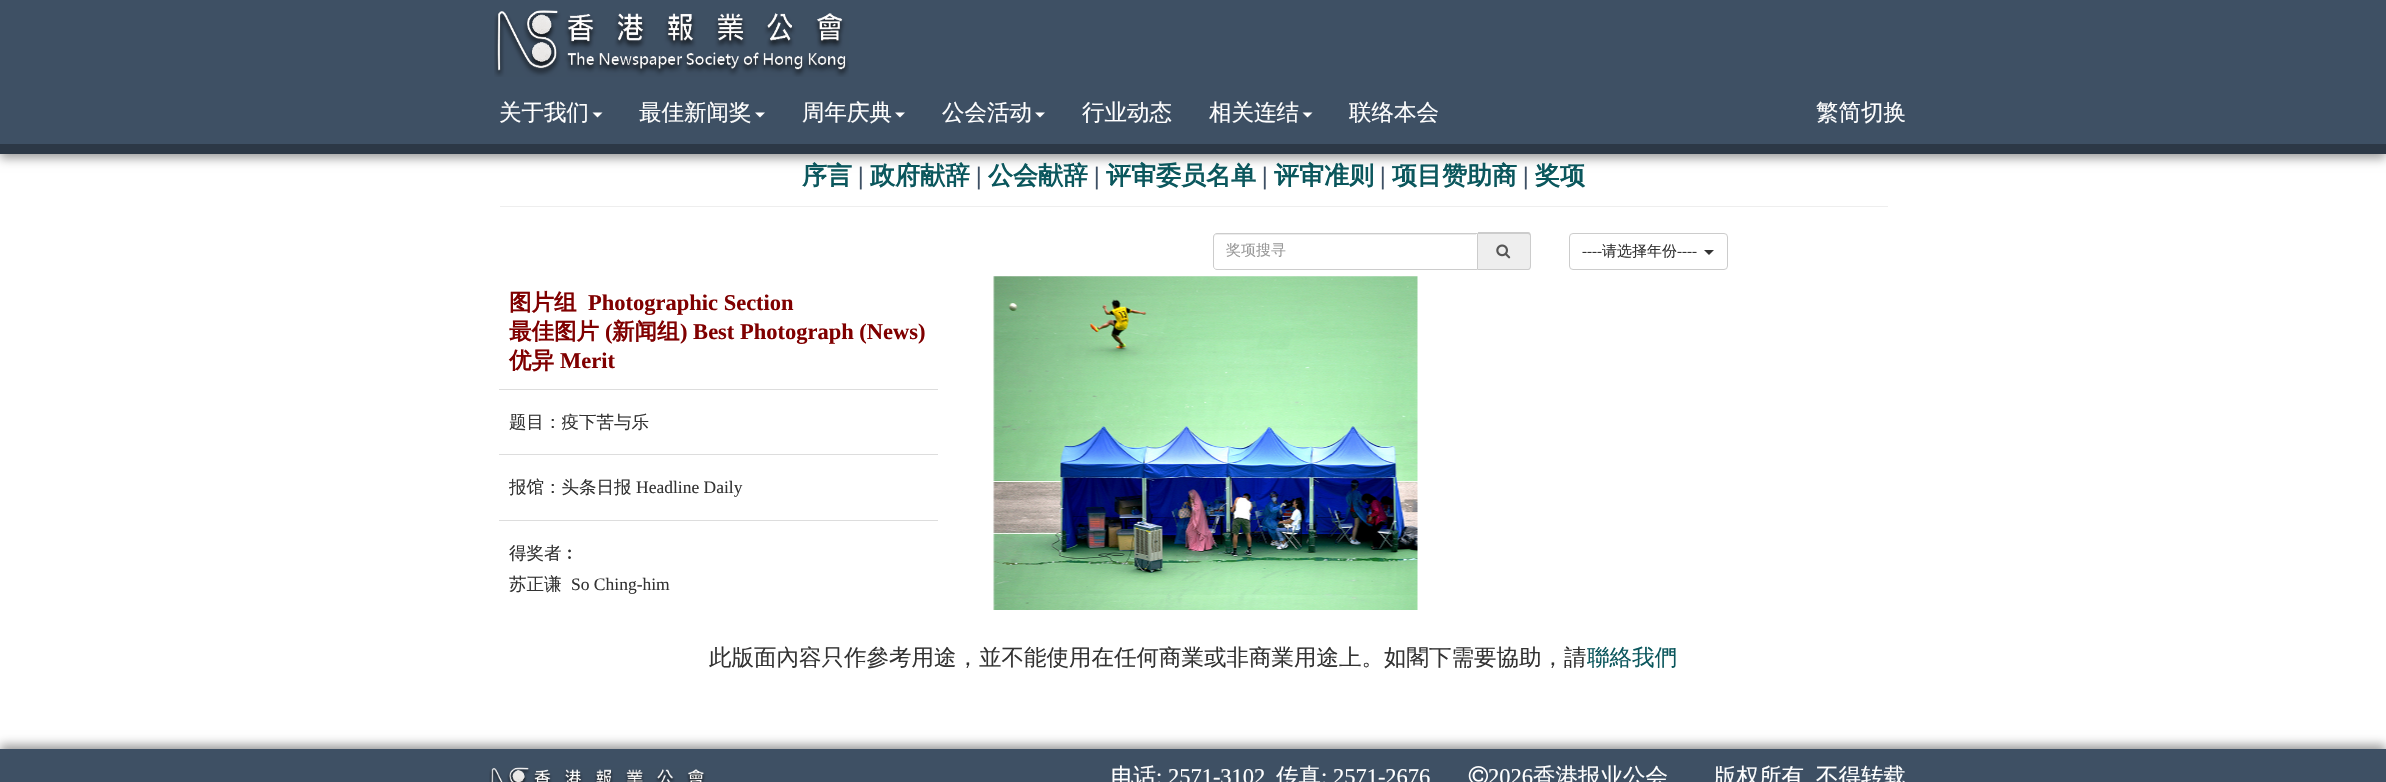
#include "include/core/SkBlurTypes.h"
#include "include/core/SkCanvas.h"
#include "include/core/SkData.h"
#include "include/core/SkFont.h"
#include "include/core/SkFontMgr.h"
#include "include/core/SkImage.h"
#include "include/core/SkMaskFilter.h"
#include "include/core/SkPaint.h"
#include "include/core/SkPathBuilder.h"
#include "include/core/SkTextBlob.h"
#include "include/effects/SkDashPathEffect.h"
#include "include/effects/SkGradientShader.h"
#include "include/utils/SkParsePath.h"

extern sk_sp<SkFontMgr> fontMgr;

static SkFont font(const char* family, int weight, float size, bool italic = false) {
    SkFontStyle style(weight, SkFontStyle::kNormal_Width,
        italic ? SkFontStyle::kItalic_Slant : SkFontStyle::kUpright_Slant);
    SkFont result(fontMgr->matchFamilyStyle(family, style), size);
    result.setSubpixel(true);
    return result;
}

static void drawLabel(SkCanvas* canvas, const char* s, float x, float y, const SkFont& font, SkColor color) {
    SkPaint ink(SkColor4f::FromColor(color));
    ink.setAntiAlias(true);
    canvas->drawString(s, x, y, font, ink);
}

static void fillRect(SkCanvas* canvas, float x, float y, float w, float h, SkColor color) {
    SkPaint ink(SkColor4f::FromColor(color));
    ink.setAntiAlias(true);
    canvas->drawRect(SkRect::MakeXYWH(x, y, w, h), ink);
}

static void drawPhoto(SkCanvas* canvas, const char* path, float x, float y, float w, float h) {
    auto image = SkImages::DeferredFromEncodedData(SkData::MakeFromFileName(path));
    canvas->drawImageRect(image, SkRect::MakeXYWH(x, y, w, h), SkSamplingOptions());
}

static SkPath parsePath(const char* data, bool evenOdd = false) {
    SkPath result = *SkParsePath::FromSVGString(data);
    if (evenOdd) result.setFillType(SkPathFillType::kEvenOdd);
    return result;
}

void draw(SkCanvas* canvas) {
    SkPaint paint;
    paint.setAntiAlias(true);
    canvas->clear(0xFFFFFFFF);
    paint.setColor(0xFF999999);
    paint.setMaskFilter(SkMaskFilter::MakeBlur(kNormal_SkBlurStyle, 5));
    canvas->drawRect(SkRect::MakeXYWH(0, 4, 2386, 154), paint);
    paint.setMaskFilter(nullptr);
    fillRect(canvas, 0, 0, 2386, 144, 0xFF3E5064);
    fillRect(canvas, 0, 144, 2386, 10, 0xFF2C3846);
    drawPhoto(canvas, "assets/img1.png", 494, 10, 355, 67);
    SkFont font1 = font("WenQuanYi Zen Hei", 500, 22.5f);
    drawLabel(canvas, "关于我们", 499, 120, font1, 0xFFFFFFFF);
    paint.setColor(0xFFFFFFFF);
    canvas->drawPath(parsePath("M592.5 112.5H602.5L597.5 117.5Z"), paint);
    drawLabel(canvas, "最佳新闻奖", 639, 120, font1, 0xFFFFFFFF);
    canvas->drawPath(parsePath("M755 112.5H765L760 117.5Z"), paint);
    drawLabel(canvas, "周年庆典", 802, 120, font1, 0xFFFFFFFF);
    canvas->drawPath(parsePath("M895 112.5H905L900 117.5Z"), paint);
    drawLabel(canvas, "公会活动", 942, 120, font1, 0xFFFFFFFF);
    canvas->drawPath(parsePath("M1035 112.5H1045L1040 117.5Z"), paint);
    drawLabel(canvas, "行业动态", 1082, 120, font1, 0xFFFFFFFF);
    drawLabel(canvas, "相关连结", 1209, 120, font1, 0xFFFFFFFF);
    canvas->drawPath(parsePath("M1302.5 112.5H1312.5L1307.5 117.5Z"), paint);
    drawLabel(canvas, "联络本会", 1349, 120, font1, 0xFFFFFFFF);
    drawLabel(canvas, "繁简切换", 1816, 120, font1, 0xFFFFFFFF);
    SkFont font2 = font("WenQuanYi Zen Hei", 700, 25);
    drawLabel(canvas, "序言", 802, 184, font2, 0xFF0B575D);
    SkFont font3 = font("Liberation Serif", 700, 25);
    drawLabel(canvas, "|", 858, 184, font3, 0xFF3E5064);
    drawLabel(canvas, "政府献辞", 870, 184, font2, 0xFF0B575D);
    drawLabel(canvas, "|", 976, 184, font3, 0xFF3E5064);
    drawLabel(canvas, "公会献辞", 988, 184, font2, 0xFF0B575D);
    drawLabel(canvas, "|", 1094, 184, font3, 0xFF3E5064);
    drawLabel(canvas, "评审委员名单", 1106, 184, font2, 0xFF0B575D);
    drawLabel(canvas, "|", 1262, 184, font3, 0xFF3E5064);
    drawLabel(canvas, "评审准则", 1274, 184, font2, 0xFF0B575D);
    drawLabel(canvas, "|", 1380, 184, font3, 0xFF3E5064);
    drawLabel(canvas, "项目赞助商", 1392, 184, font2, 0xFF0B575D);
    drawLabel(canvas, "|", 1523, 184, font3, 0xFF3E5064);
    drawLabel(canvas, "奖项", 1535, 184, font2, 0xFF0B575D);
    fillRect(canvas, 500, 206, 1388, 1, 0xFFEEEEEE);
    paint.setColor(0xFFECECEC);
    canvas->drawPath(parsePath("M1216 235H1476V234H1216C1215 234 1214 235 1214 236V238C1214 236 1215 235 1216 235Z"), paint);
    paint.setStroke(true);
    paint.setStrokeWidth(1);
    paint.setColor(0xFFCCCCCC);
    canvas->drawPath(parsePath("M1217 233.5H1477.5V269.5H1217C1215 269.5 1213.5 268 1213.5 266V237C1213.5 235 1215 233.5 1217 233.5Z"), paint);
    SkFont font4 = font("WenQuanYi Zen Hei", 500, 15);
    drawLabel(canvas, "奖项搜寻", 1226, 255, font4, 0xFF999999);
    paint.setStroke(false);
    paint.setColor(0xFFEEEEEE);
    canvas->drawPath(parsePath("M1478 233H1527C1529 233 1531 235 1531 237V266C1531 268 1529 270 1527 270H1478Z"), paint);
    paint.setColor(0xFFCCCCCC);
    canvas->drawPath(parsePath("M1478 232H1528C1530 232 1531 234 1531 236V266C1531 268 1530 270 1528 270H1478ZM1478 234H1528C1529 234 1530 235 1530 236V266C1530 268 1529 269 1528 269H1478Z", true), paint);
    drawPhoto(canvas, "assets/img2.png", 1496, 244, 15, 15);
    paint.setStroke(true);
    canvas->drawRoundRect(SkRect::MakeXYWH(1569.5f, 233.5f, 158, 36), 3.5f, 3.5f, paint);
    SkFont font5 = font("Liberation Serif", 400, 15);
    drawLabel(canvas, "----", 1582, 256, font5, 0xFF333333);
    drawLabel(canvas, "请选择年份", 1602, 256, font4, 0xFF333333);
    drawLabel(canvas, "----", 1677, 256, font5, 0xFF333333);
    paint.setStroke(false);
    paint.setColor(0xFF333333);
    canvas->drawPath(parsePath("M1704 250H1714L1709 255Z"), paint);
    SkFont font6 = font("WenQuanYi Zen Hei", 700, 22.5f);
    drawLabel(canvas, "图片组", 509, 310, font6, 0xFF800000);
    SkFont font7 = font("Liberation Serif", 700, 22.5f);
    drawLabel(canvas, "Photographic Section", 588, 310, font7, 0xFF800000);
    drawLabel(canvas, "最佳图片", 509, 339, font6, 0xFF800000);
    drawLabel(canvas, "(", 605, 339, font7, 0xFF800000);
    drawLabel(canvas, "新闻组", 612, 339, font6, 0xFF800000);
    drawLabel(canvas, ") Best Photograph (News)", 680, 339, font7, 0xFF800000);
    drawLabel(canvas, "优异", 509, 368, font6, 0xFF800000);
    drawLabel(canvas, "Merit", 560, 368, font7, 0xFF800000);
    fillRect(canvas, 499, 389, 439, 1, 0xFFDDDDDD);
    SkFont font8 = font("WenQuanYi Zen Hei", 500, 17.5f);
    drawLabel(canvas, "题目：疫下苦与乐", 509, 428, font8, 0xFF333333);
    fillRect(canvas, 499, 454, 439, 1, 0xFFDDDDDD);
    drawLabel(canvas, "报馆：头条日报", 509, 493, font8, 0xFF333333);
    SkFont font9 = font("Liberation Serif", 400, 17.5f);
    drawLabel(canvas, "Headline Daily", 636, 493, font9, 0xFF333333);
    fillRect(canvas, 499, 520, 439, 1, 0xFFDDDDDD);
    drawLabel(canvas, "得奖者︰", 509, 559, font8, 0xFF333333);
    drawLabel(canvas, "苏正谦", 509, 590, font8, 0xFF333333);
    drawLabel(canvas, "So Ching-him", 571, 590, font9, 0xFF333333);
    drawPhoto(canvas, "assets/img3.png", 993, 276, 425, 334);
    drawLabel(canvas, "此版面內容只作參考用途，並不能使用在任何商業或非商業用途上。如閣下需要協助，請", 709, 665, font1, 0xFF333333);
    drawLabel(canvas, "聯絡我們", 1587, 665, font1, 0xFF0B575D);
    paint.setColor(0xFF999999);
    paint.setMaskFilter(SkMaskFilter::MakeBlur(kNormal_SkBlurStyle, 5));
    canvas->drawRect(SkRect::MakeXYWH(0, 745, 2386, 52), paint);
    paint.setMaskFilter(nullptr);
    fillRect(canvas, 0, 749, 2386, 33, 0xFF3E5064);
    drawPhoto(canvas, "assets/img4.png", 489, 767, 217, 15);
    drawLabel(canvas, "电话", 1111, 784, font1, 0xFFFFFFFF);
    SkFont font10 = font("Liberation Serif", 400, 22.5f);
    drawLabel(canvas, ": 2571-3102", 1156, 784, font10, 0xFFFFFFFF);
    drawLabel(canvas, "传真", 1276, 784, font1, 0xFFFFFFFF);
    drawLabel(canvas, ": 2571-2676", 1321, 784, font10, 0xFFFFFFFF);
    drawPhoto(canvas, "assets/img5.png", 1468, 766, 20, 16);
    drawLabel(canvas, "2026", 1488, 784, font10, 0xFFFFFFFF);
    drawLabel(canvas, "香港报业公会", 1533, 784, font1, 0xFFFFFFFF);
    drawLabel(canvas, "版权所有", 1714, 784, font1, 0xFFFFFFFF);
    drawLabel(canvas, "不得转载", 1816, 784, font1, 0xFFFFFFFF);
}
